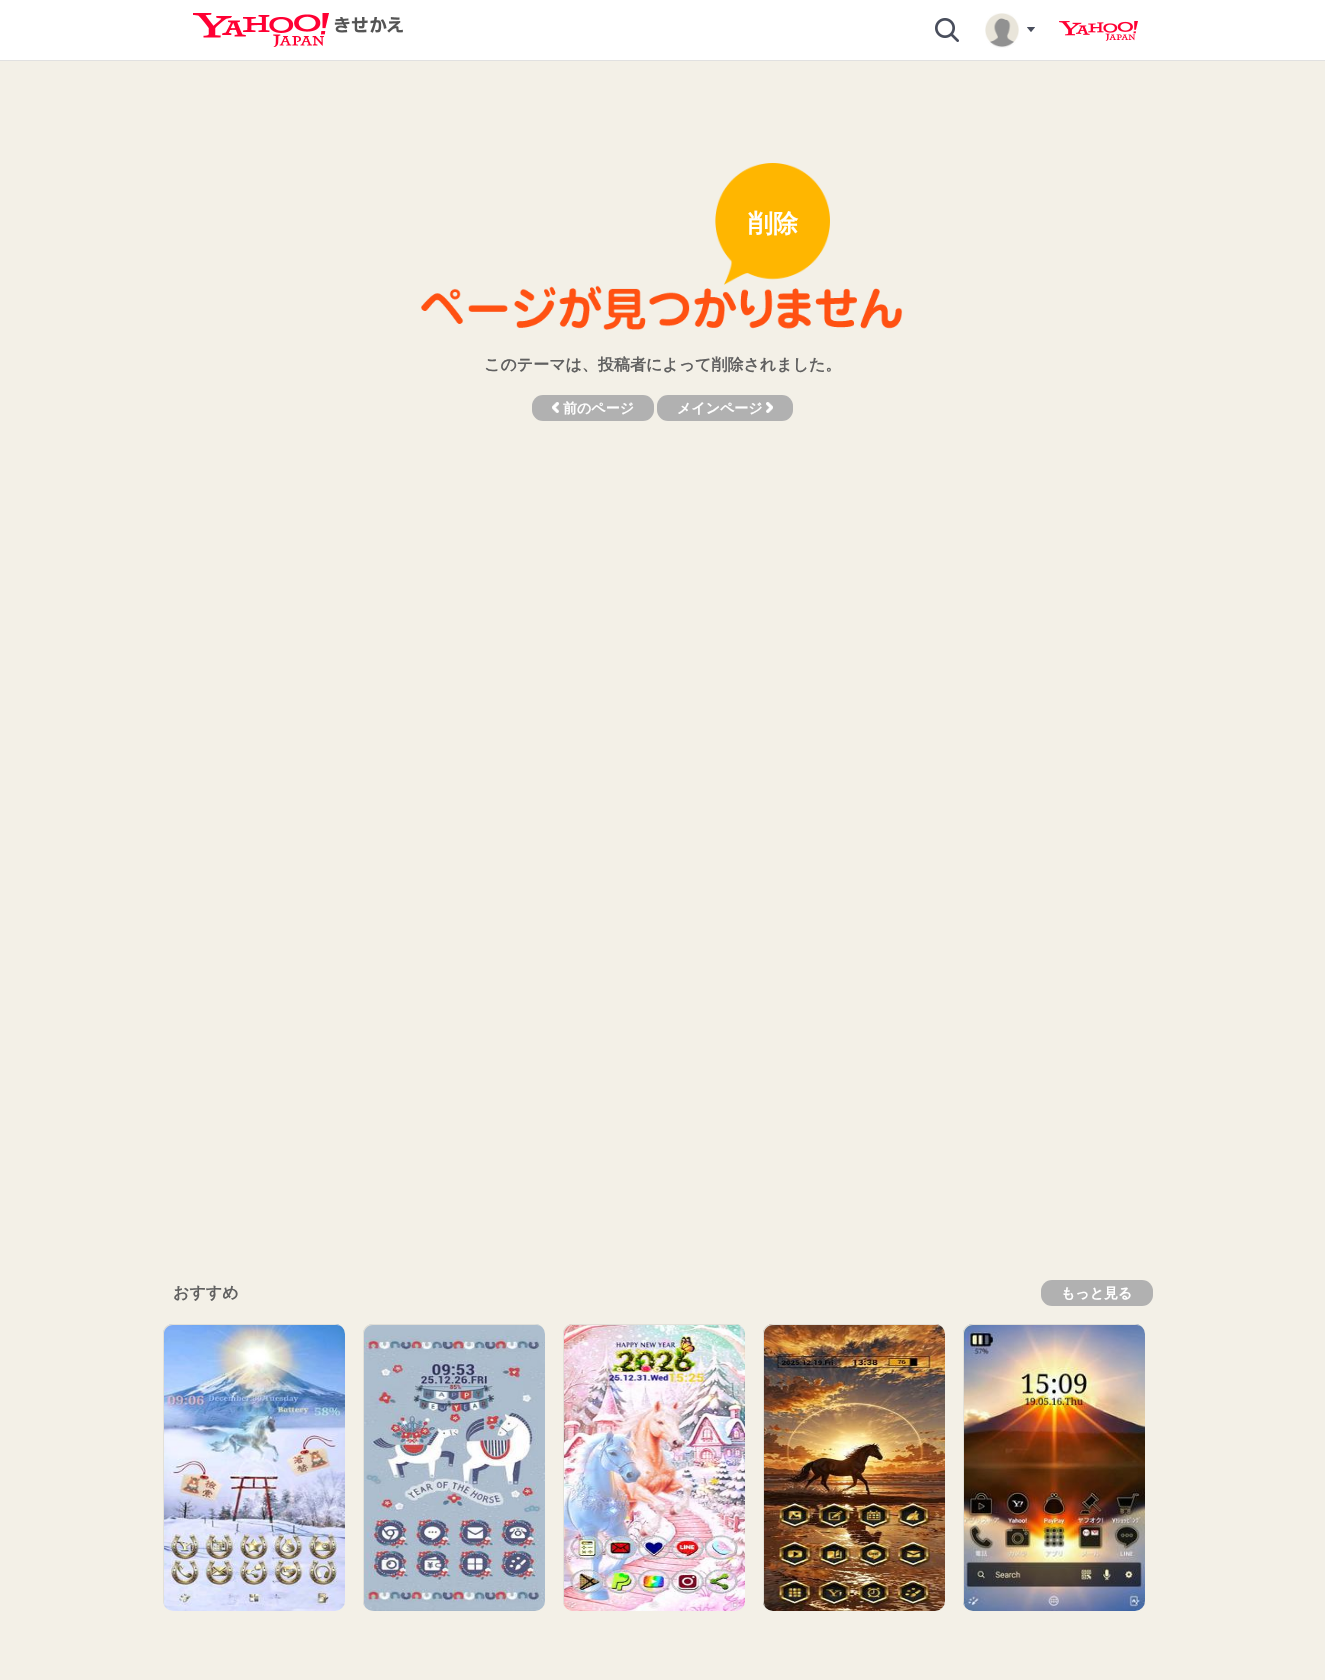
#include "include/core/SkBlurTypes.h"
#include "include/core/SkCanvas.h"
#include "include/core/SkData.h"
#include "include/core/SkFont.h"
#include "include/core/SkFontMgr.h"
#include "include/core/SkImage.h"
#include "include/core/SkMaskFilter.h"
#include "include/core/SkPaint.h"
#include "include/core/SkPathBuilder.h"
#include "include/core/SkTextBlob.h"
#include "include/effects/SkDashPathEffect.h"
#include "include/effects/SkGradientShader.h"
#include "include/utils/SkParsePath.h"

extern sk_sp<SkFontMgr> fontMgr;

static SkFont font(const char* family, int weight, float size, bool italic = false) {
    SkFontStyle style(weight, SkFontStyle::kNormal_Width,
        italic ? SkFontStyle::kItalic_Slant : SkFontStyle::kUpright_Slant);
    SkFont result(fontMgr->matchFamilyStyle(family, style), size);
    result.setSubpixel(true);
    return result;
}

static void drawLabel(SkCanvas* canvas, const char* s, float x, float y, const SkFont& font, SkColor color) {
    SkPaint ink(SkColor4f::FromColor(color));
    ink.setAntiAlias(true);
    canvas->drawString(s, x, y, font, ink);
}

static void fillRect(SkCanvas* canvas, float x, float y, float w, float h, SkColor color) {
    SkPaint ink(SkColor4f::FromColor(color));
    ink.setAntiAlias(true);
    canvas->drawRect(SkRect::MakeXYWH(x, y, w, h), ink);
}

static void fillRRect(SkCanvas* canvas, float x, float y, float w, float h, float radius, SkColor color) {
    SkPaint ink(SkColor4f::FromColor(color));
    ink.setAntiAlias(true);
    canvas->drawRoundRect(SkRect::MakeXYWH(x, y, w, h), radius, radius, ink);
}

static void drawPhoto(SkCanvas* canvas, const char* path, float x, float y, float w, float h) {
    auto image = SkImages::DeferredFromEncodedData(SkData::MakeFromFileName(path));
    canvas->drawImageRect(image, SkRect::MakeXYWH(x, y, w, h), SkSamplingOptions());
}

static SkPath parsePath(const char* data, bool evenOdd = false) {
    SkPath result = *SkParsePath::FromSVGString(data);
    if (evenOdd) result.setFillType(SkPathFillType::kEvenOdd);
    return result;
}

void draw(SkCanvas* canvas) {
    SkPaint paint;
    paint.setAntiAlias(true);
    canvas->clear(0xFFF3F0E7);
    fillRect(canvas, 0, 0, 1325, 60, 0xFFFFFFFF);
    fillRect(canvas, 0, 60, 1325, 1, 0xFFE1E1E1);
    drawPhoto(canvas, "assets/img1.png", 193, 13, 210, 34);
    drawPhoto(canvas, "assets/img2.png", 935, 18, 24, 24);
    drawPhoto(canvas, "assets/img3.png", 985, 13, 34, 35);
    drawPhoto(canvas, "assets/img4.png", 1027, 27, 8, 5);
    drawPhoto(canvas, "assets/img5.png", 1059, 21, 79, 20);
    drawPhoto(canvas, "assets/img6.png", 715, 163, 115, 122);
    SkFont font1 = font("WenQuanYi Zen Hei", 700, 25);
    drawLabel(canvas, "削除", 748, 232, font1, 0xFFFFFFFF);
    drawPhoto(canvas, "assets/img7.png", 421, 285, 482, 45);
    SkFont font2 = font("WenQuanYi Zen Hei", 700, 16);
    drawLabel(canvas, "このテーマは、投稿者によって削除されました。", 484, 370, font2, 0xFF606060);
    fillRRect(canvas, 532, 395, 122, 26, 11, 0xFFB1B1B1);
    drawPhoto(canvas, "assets/img8.png", 552, 402, 7, 11);
    SkFont font3 = font("WenQuanYi Zen Hei", 700, 14);
    drawLabel(canvas, "前のページ", 563, 413, font3, 0xFFFFFFFF);
    fillRRect(canvas, 657, 395, 136, 26, 11, 0xFFB1B1B1);
    drawLabel(canvas, "メインページ", 677, 413, font3, 0xFFFFFFFF);
    drawPhoto(canvas, "assets/img9.png", 766, 402, 7, 11);
    drawLabel(canvas, "おすすめ", 173, 1298, font2, 0xFF606060);
    fillRRect(canvas, 1041, 1280, 112, 26, 11, 0xFFB1B1B1);
    drawLabel(canvas, "もっと見る", 1061, 1298, font3, 0xFFFFFFFF);
    drawPhoto(canvas, "assets/img10.png", 163, 1324, 182, 287);
    paint.setColor(0xFFE2E0D8);
    canvas->drawPath(parsePath("M173 1324C167 1324 163 1328 163 1334V1601C163 1603 164 1605 165 1607L164 1603V1334C164 1329 168 1325 173 1325H337L341 1326C339 1325 337 1324 335 1324Z"), paint);
    drawPhoto(canvas, "assets/img11.png", 363, 1324, 182, 287);
    canvas->drawPath(parsePath("M373 1324C367 1324 363 1328 363 1334V1601C363 1603 364 1605 365 1607L364 1603V1334C364 1329 368 1325 373 1325H537L541 1326C539 1325 537 1324 535 1324Z"), paint);
    drawPhoto(canvas, "assets/img12.png", 563, 1324, 182, 287);
    canvas->drawPath(parsePath("M573 1324C567 1324 563 1328 563 1334V1601C563 1603 564 1605 565 1607L564 1603V1334C564 1329 568 1325 573 1325H737L741 1326C739 1325 737 1324 735 1324Z"), paint);
    drawPhoto(canvas, "assets/img13.png", 763, 1324, 182, 287);
    canvas->drawPath(parsePath("M773 1324C767 1324 763 1328 763 1334V1601C763 1603 764 1605 765 1607L764 1603V1334C764 1329 768 1325 773 1325H937L941 1326C939 1325 937 1324 935 1324Z"), paint);
    drawPhoto(canvas, "assets/img14.png", 963, 1324, 182, 287);
    canvas->drawPath(parsePath("M973 1324C967 1324 963 1328 963 1334V1601C963 1603 964 1605 965 1607L964 1603V1334C964 1329 968 1325 973 1325H1137L1141 1326C1139 1325 1137 1324 1135 1324Z"), paint);
}
